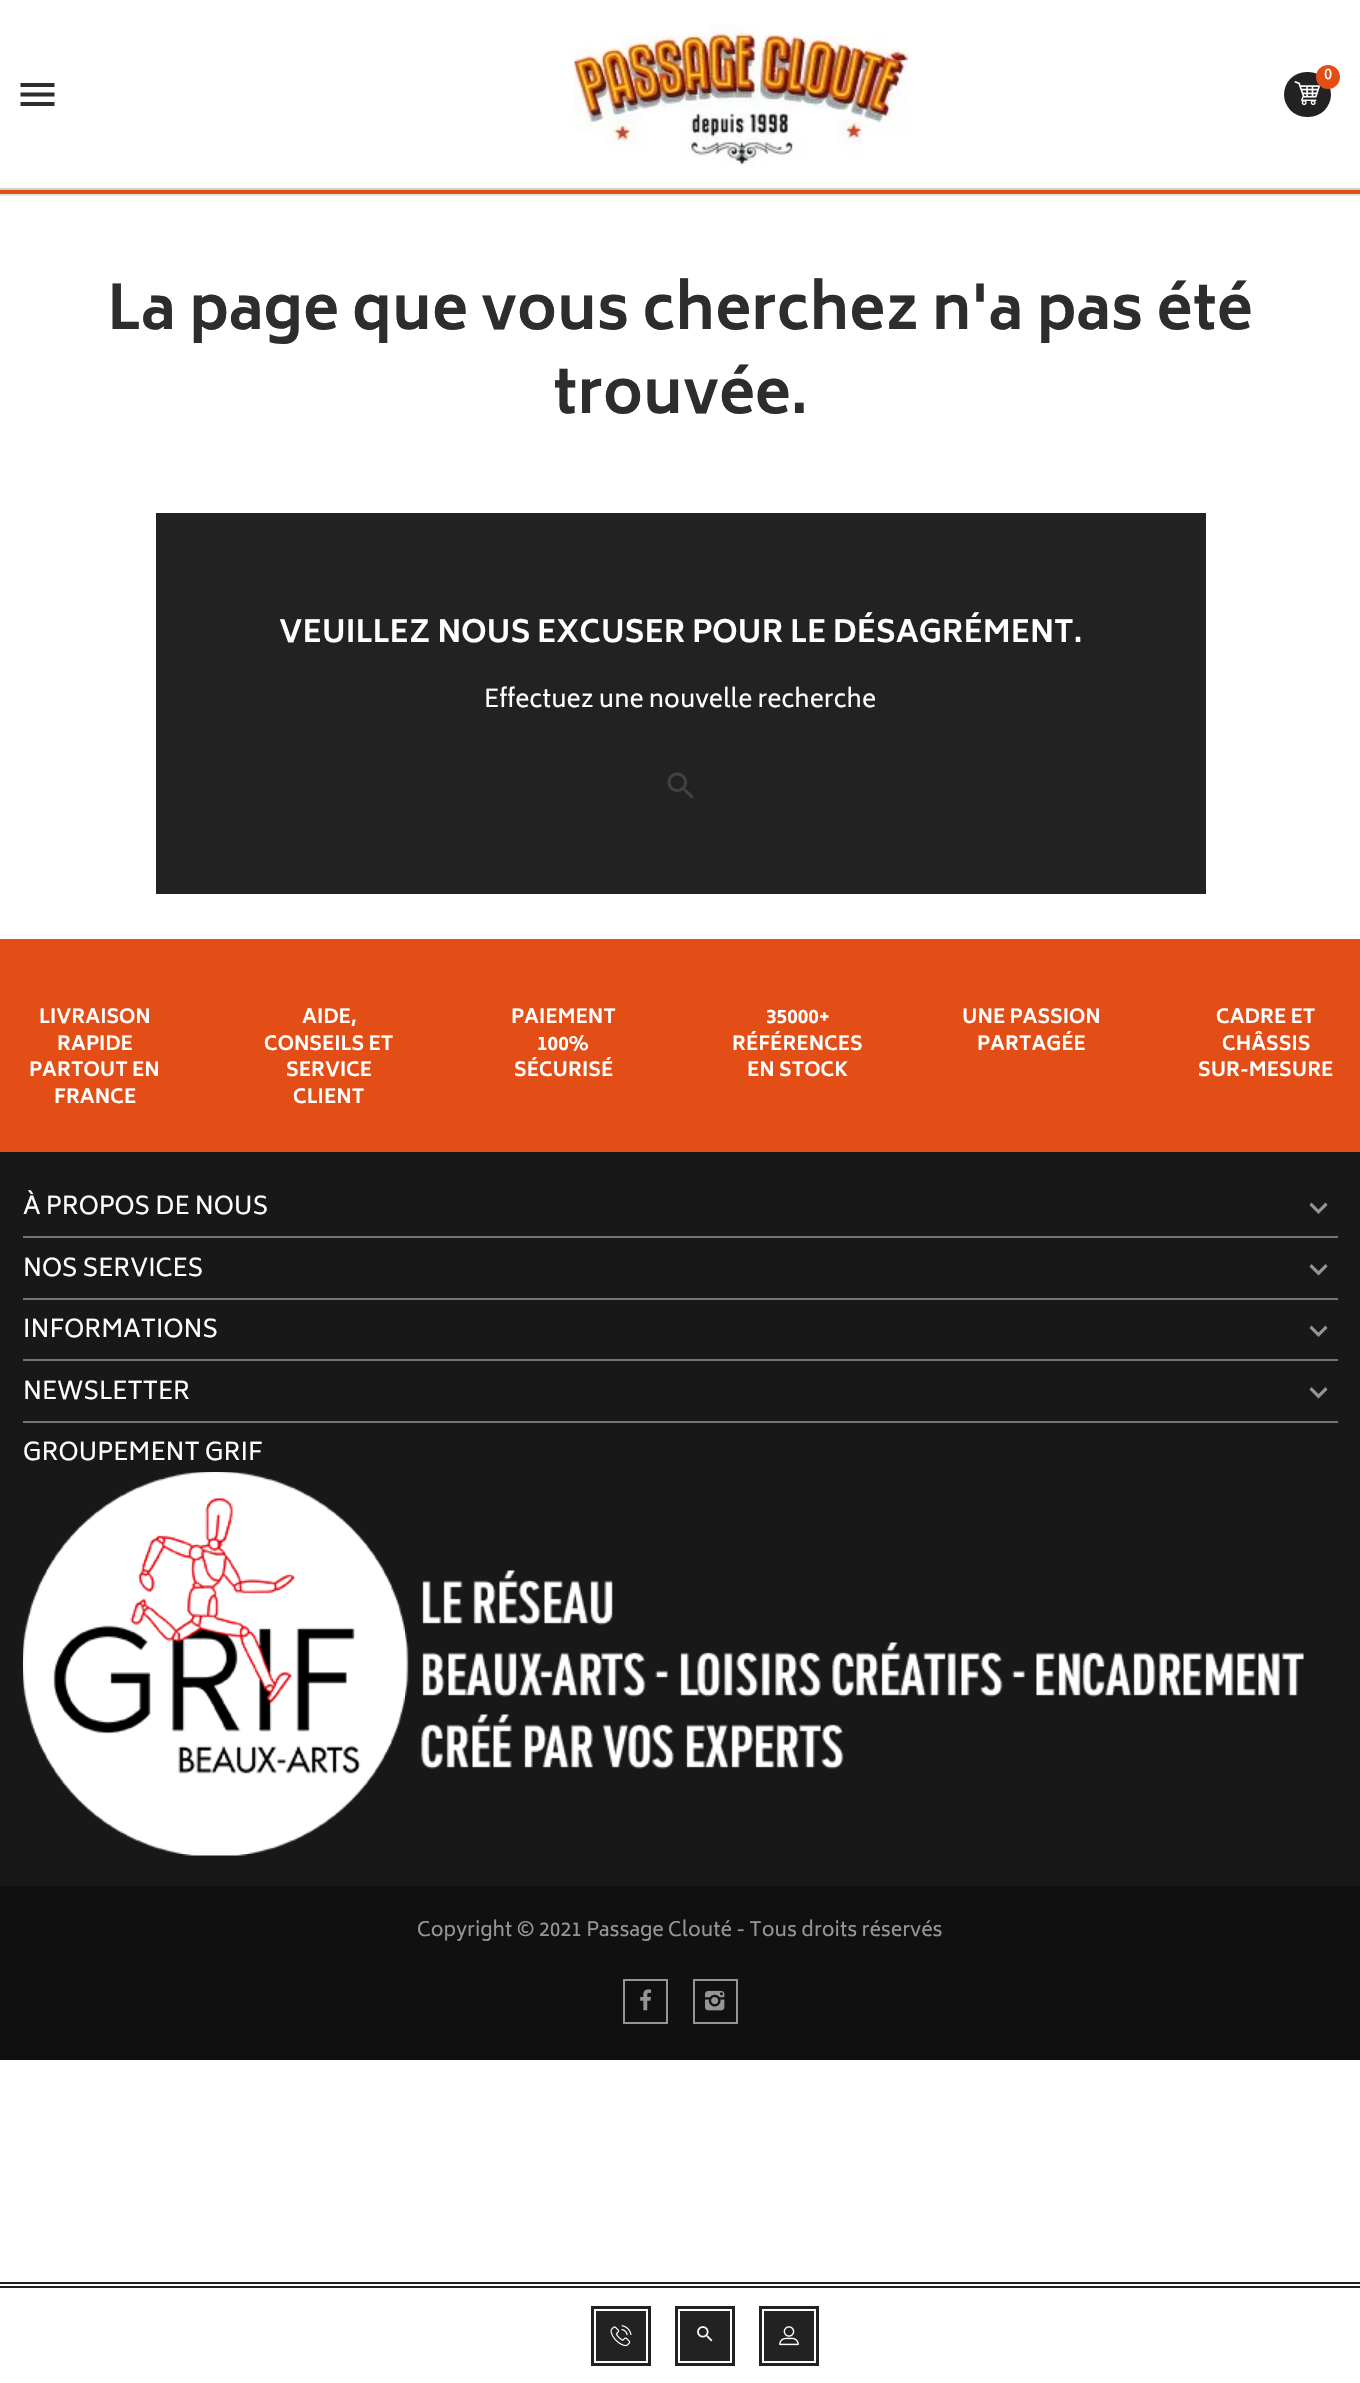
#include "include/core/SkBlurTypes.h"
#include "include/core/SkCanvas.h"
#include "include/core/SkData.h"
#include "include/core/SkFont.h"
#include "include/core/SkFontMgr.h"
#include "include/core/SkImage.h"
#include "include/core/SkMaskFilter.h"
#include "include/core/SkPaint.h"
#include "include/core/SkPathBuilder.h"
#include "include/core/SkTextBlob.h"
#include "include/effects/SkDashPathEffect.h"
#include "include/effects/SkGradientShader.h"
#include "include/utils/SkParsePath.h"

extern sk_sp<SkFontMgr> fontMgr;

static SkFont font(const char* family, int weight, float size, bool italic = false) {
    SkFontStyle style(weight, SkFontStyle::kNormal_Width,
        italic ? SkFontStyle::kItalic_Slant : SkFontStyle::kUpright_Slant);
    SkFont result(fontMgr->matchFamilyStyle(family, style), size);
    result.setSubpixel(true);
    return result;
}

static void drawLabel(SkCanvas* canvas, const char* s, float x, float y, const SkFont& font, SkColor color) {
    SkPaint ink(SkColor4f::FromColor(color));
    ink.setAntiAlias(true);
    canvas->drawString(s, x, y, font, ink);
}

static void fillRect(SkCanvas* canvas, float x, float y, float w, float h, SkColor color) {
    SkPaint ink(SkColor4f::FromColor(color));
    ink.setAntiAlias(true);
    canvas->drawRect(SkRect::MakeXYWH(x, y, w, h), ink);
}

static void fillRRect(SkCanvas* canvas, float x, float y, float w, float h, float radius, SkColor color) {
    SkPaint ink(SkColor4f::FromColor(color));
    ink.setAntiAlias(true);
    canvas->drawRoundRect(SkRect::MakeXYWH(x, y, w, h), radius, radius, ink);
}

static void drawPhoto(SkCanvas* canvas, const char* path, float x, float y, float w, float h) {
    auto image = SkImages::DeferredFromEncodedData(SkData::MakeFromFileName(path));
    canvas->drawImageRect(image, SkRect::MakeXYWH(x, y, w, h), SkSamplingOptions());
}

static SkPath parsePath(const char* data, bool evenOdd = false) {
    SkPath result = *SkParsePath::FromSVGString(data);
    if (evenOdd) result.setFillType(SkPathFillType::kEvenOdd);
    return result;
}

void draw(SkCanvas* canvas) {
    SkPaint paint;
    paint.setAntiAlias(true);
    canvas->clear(0xFFFFFFFF);
    fillRect(canvas, 0, 194, 1360, 2, 0xFFE3E3E3);
    drawPhoto(canvas, "assets/img1.png", 574, 24, 334, 144);
    fillRRect(canvas, 1284, 72, 47, 45, 22.5f, 0xFF222222);
    drawPhoto(canvas, "assets/img2.png", 1294, 81, 26, 25);
    paint.setColor(0xFFE34E16);
    canvas->drawCircle(1328, 77, 12, paint);
    SkFont font1 = font("Biryani", 400, 15);
    drawLabel(canvas, "0", 1324, 79, font1, 0xFFFFFFFF);
    paint.setColor(0xFF2D2D2D);
    canvas->drawPath(parsePath("M20.5 83H54.5V87H20.5ZM20.5 96.5V92.5H54.5V96.5ZM20.5 106V102H54.5V106Z"), paint);
    fillRect(canvas, 0, 190, 1360, 4, 0xFFE34E16);
    fillRect(canvas, 0, 188, 1360, 2, 0xFFCECECE);
    fillRect(canvas, 0, 2282, 1360, 2, 0xFF222222);
    fillRect(canvas, 0, 2286, 1360, 2, 0xFF222222);
    fillRect(canvas, 591, 2306, 60, 60, 0xFF222222);
    drawPhoto(canvas, "assets/img3.png", 610, 2325, 22, 22);
    paint.setStroke(true);
    paint.setStrokeWidth(2);
    paint.setColor(0xFFFFFFFF);
    canvas->drawRect(SkRect::MakeXYWH(595, 2310, 52, 52), paint);
    fillRect(canvas, 675, 2306, 60, 60, 0xFF222222);
    drawPhoto(canvas, "assets/img4.png", 697, 2326, 16, 16);
    canvas->drawRect(SkRect::MakeXYWH(679, 2310, 52, 52), paint);
    fillRect(canvas, 759, 2306, 60, 60, 0xFF222222);
    drawPhoto(canvas, "assets/img5.png", 779, 2326, 20, 20);
    canvas->drawRect(SkRect::MakeXYWH(763, 2310, 52, 52), paint);
    SkFont font2 = font("Biryani", 700, 60);
    drawLabel(canvas, "La page que vous cherchez n'a pas été", 107, 329, font2, 0xFF2D2D2D);
    drawLabel(canvas, "trouvée.", 553, 413, font2, 0xFF2D2D2D);
    fillRect(canvas, 156, 513, 1050, 381, 0xFF222222);
    SkFont font3 = font("Biryani", 700, 30);
    drawLabel(canvas, "VEUILLEZ NOUS EXCUSER POUR LE DÉSAGRÉMENT.", 279, 642, font3, 0xFFFFFFFF);
    SkFont font4 = font("Biryani", 400, 24);
    drawLabel(canvas, "Effectuez une nouvelle recherche", 484, 707, font4, 0xFFFFFFFF);
    drawPhoto(canvas, "assets/img6.png", 667, 772, 27, 27);
    fillRect(canvas, 0, 939, 1360, 213, 0xFFE34E16);
    SkFont font5 = font("Biryani", 700, 19.25f);
    drawLabel(canvas, "LIVRAISON", 39, 1023, font5, 0xFFFFFFFF);
    drawLabel(canvas, "RAPIDE", 57, 1050, font5, 0xFFFFFFFF);
    drawLabel(canvas, "PARTOUT EN", 29, 1076, font5, 0xFFFFFFFF);
    drawLabel(canvas, "FRANCE", 54, 1103, font5, 0xFFFFFFFF);
    drawLabel(canvas, "AIDE,", 302, 1023, font5, 0xFFFFFFFF);
    drawLabel(canvas, "CONSEILS ET", 264, 1050, font5, 0xFFFFFFFF);
    drawLabel(canvas, "SERVICE", 286, 1076, font5, 0xFFFFFFFF);
    drawLabel(canvas, "CLIENT", 293, 1103, font5, 0xFFFFFFFF);
    drawLabel(canvas, "PAIEMENT", 511, 1023, font5, 0xFFFFFFFF);
    drawLabel(canvas, "100%", 537, 1050, font5, 0xFFFFFFFF);
    drawLabel(canvas, "SÉCURISÉ", 514, 1076, font5, 0xFFFFFFFF);
    drawLabel(canvas, "35000+", 766, 1023, font5, 0xFFFFFFFF);
    drawLabel(canvas, "RÉFÉRENCES", 732, 1050, font5, 0xFFFFFFFF);
    drawLabel(canvas, "EN STOCK", 747, 1076, font5, 0xFFFFFFFF);
    drawLabel(canvas, "UNE PASSION", 962, 1023, font5, 0xFFFFFFFF);
    drawLabel(canvas, "PARTAGÉE", 977, 1050, font5, 0xFFFFFFFF);
    drawLabel(canvas, "CADRE ET", 1216, 1023, font5, 0xFFFFFFFF);
    drawLabel(canvas, "CHÂSSIS", 1222, 1050, font5, 0xFFFFFFFF);
    drawLabel(canvas, "SUR-MESURE", 1198, 1076, font5, 0xFFFFFFFF);
    fillRect(canvas, 0, 1152, 1360, 734, 0xFF181818);
    fillRect(canvas, 23, 1236, 1315, 2, 0xFF747474);
    drawLabel(canvas, "À PROPOS DE NOUS", 23, 1214, font4, 0xFFFFFFFF);
    paint.setStroke(false);
    paint.setColor(0xFF959595);
    canvas->drawPath(parsePath("M1311.5 1202.5L1318.5 1209.5L1325.5 1202.5L1327.5 1205L1318.5 1214L1309.5 1205Z"), paint);
    fillRect(canvas, 23, 1298, 1315, 2, 0xFF747474);
    drawLabel(canvas, "NOS SERVICES", 23, 1276, font4, 0xFFFFFFFF);
    canvas->drawPath(parsePath("M1311.5 1264L1318.5 1271L1325.5 1264L1327.5 1266.5L1318.5 1275.5L1309.5 1266.5Z"), paint);
    fillRect(canvas, 23, 1359, 1315, 2, 0xFF747474);
    drawLabel(canvas, "INFORMATIONS", 23, 1337, font4, 0xFFFFFFFF);
    canvas->drawPath(parsePath("M1311.5 1325.5L1318.5 1332.5L1325.5 1325.5L1327.5 1328L1318.5 1337L1309.5 1328Z"), paint);
    fillRect(canvas, 23, 1421, 1315, 2, 0xFF747474);
    drawLabel(canvas, "NEWSLETTER", 23, 1399, font4, 0xFFFFFFFF);
    canvas->drawPath(parsePath("M1311.5 1387L1318.5 1394L1325.5 1387L1327.5 1389.5L1318.5 1398.5L1309.5 1389.5Z"), paint);
    drawLabel(canvas, "GROUPEMENT GRIF", 23, 1460, font4, 0xFFFFFFFF);
    drawPhoto(canvas, "assets/img7.png", 23, 1472, 1281, 384);
    fillRect(canvas, 0, 1886, 1360, 174, 0xFF101010);
    SkFont font6 = font("Biryani", 400, 19.5f);
    drawLabel(canvas, "Copyright © 2021 Passage Clouté - Tous droits réservés", 417, 1936, font6, 0xFF959595);
    paint.setStroke(true);
    canvas->drawRect(SkRect::MakeXYWH(624, 1980, 43, 43), paint);
    drawPhoto(canvas, "assets/img8.png", 640, 1989, 12, 22);
    canvas->drawRect(SkRect::MakeXYWH(694, 1980, 43, 43), paint);
    drawPhoto(canvas, "assets/img9.png", 705, 1990, 20, 21);
}
